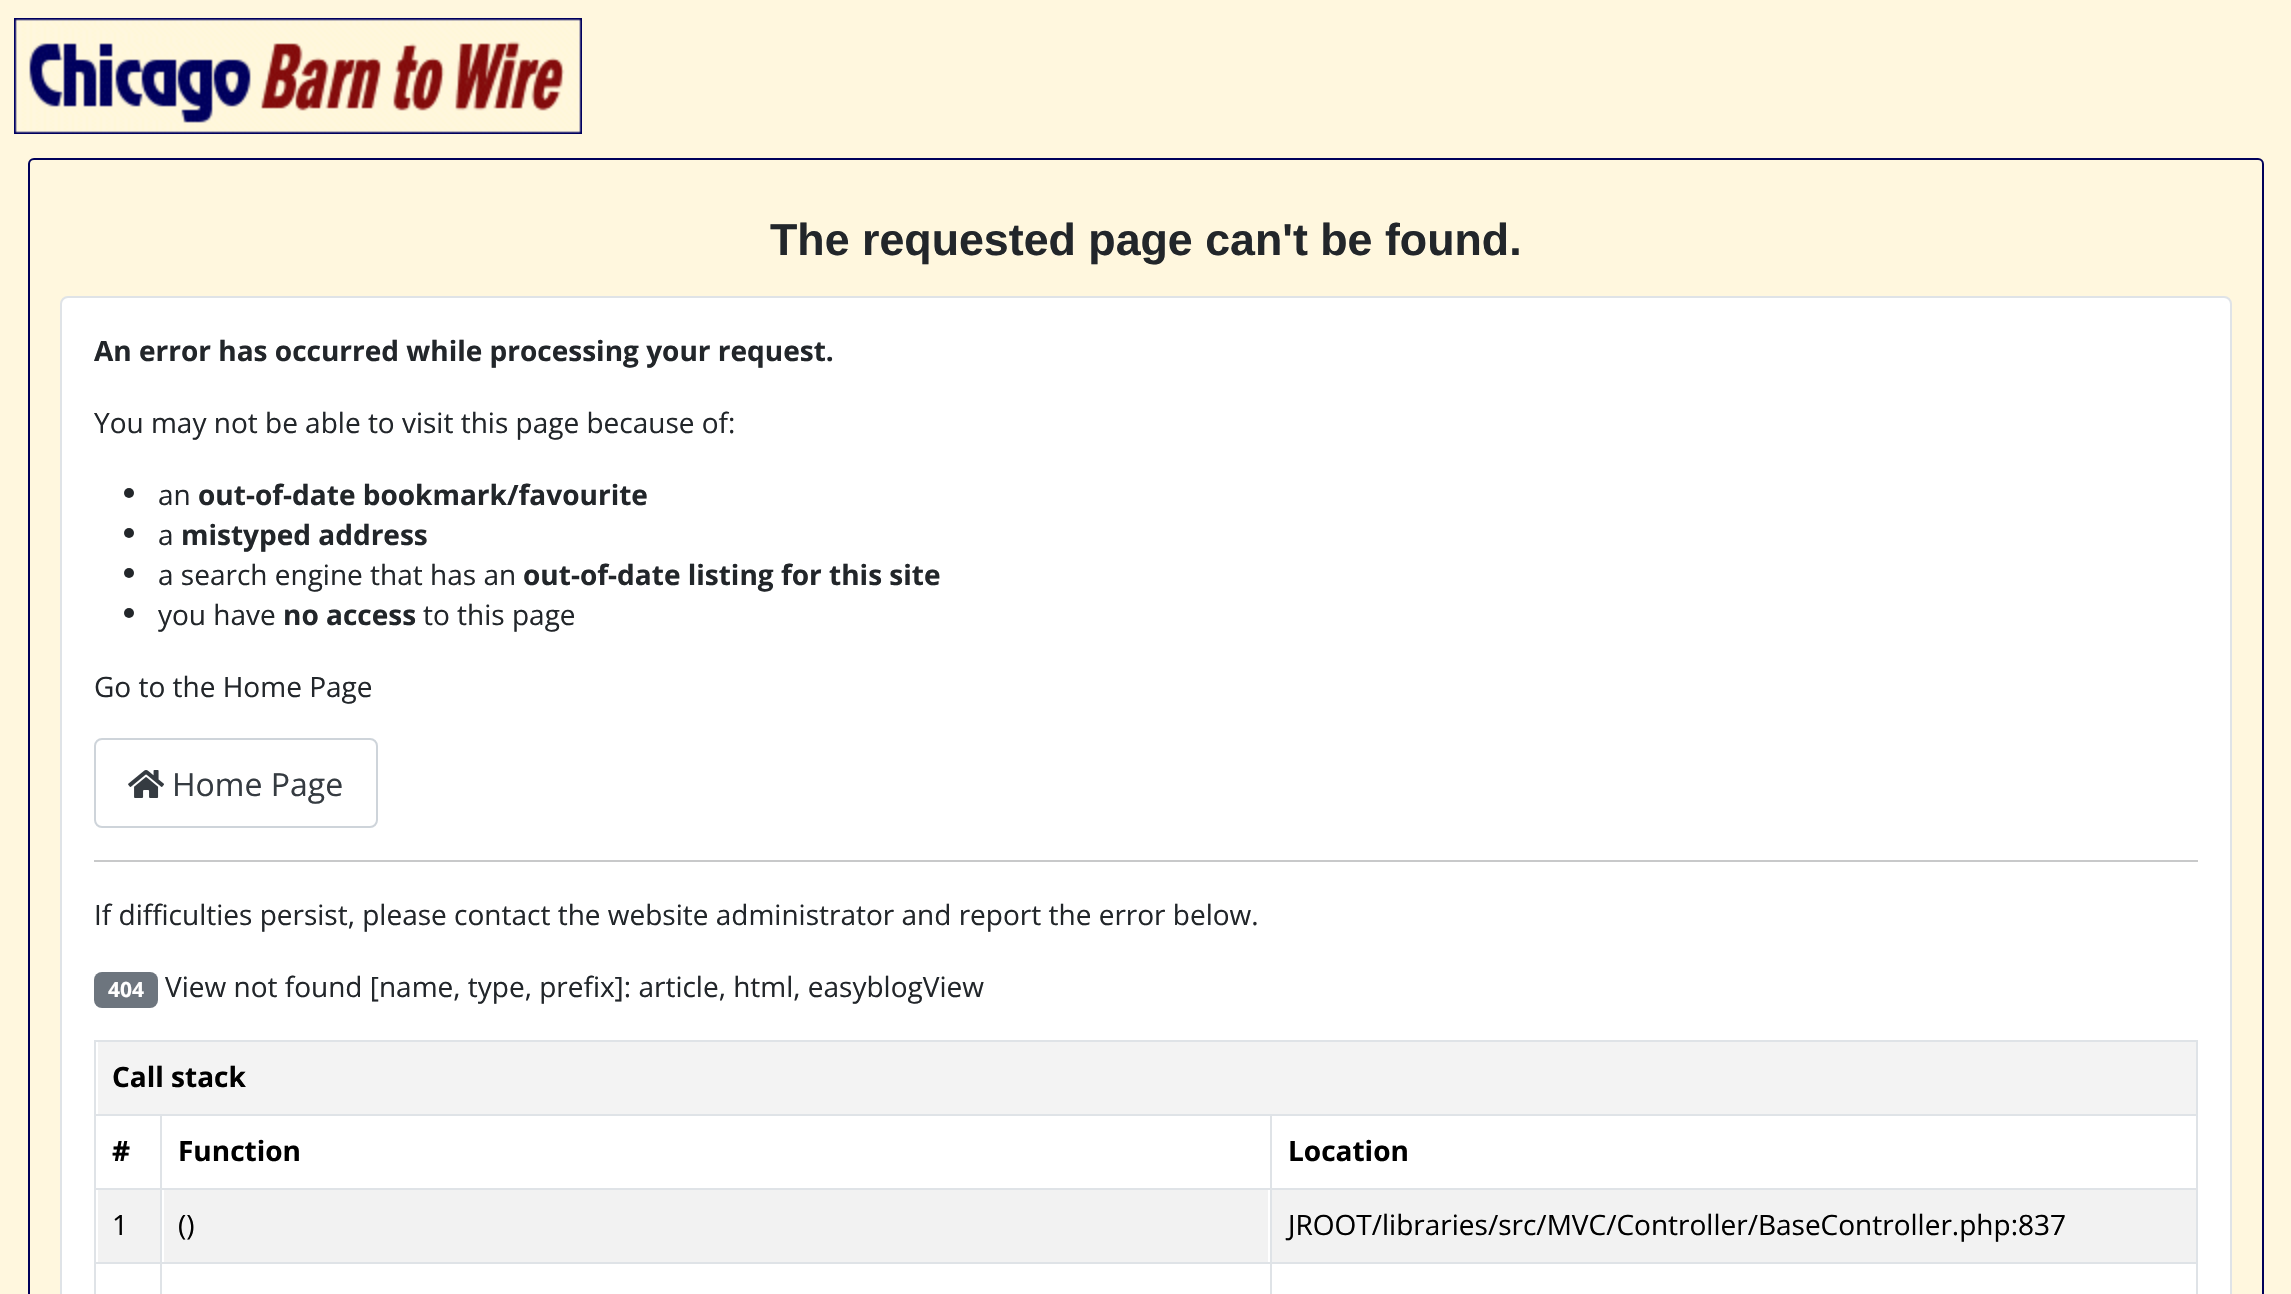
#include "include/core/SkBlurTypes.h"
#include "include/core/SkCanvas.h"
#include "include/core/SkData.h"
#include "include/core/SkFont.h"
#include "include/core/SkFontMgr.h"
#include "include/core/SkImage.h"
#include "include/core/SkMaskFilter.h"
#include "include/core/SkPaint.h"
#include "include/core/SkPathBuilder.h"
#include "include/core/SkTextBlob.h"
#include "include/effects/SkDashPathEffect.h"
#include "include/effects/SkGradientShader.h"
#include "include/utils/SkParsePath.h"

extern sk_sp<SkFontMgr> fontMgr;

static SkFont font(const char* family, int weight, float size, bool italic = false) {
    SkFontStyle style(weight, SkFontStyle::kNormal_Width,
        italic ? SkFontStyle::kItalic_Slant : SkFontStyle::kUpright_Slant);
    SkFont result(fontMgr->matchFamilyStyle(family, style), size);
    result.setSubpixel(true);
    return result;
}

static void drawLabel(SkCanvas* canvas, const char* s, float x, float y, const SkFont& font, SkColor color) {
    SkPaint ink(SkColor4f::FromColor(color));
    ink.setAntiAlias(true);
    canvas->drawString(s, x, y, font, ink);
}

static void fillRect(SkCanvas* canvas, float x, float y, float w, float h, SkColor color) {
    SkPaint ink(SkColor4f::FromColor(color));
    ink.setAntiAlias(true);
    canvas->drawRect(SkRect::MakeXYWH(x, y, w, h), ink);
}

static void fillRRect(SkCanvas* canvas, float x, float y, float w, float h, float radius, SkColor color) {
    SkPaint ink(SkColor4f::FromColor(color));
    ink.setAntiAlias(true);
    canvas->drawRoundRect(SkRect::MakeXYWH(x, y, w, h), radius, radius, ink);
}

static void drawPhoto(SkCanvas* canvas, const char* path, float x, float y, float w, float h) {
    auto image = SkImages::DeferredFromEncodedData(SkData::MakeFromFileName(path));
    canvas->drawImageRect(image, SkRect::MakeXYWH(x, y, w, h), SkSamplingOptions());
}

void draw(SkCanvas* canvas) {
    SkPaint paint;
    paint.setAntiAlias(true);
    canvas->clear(0xFFFFF7DE);
    drawPhoto(canvas, "assets/img1.png", 14, 18, 568, 116);
    paint.setStroke(true);
    paint.setStrokeWidth(2);
    paint.setColor(0xFF00005A);
    canvas->drawRoundRect(SkRect::MakeXYWH(29, 159, 2234, 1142), 5, 5, paint);
    SkFont font1 = font("Liberation Sans", 700, 44.75f);
    drawLabel(canvas, "The requested page can't be found.", 770, 255, font1, 0xFF22262A);
    paint.setStroke(false);
    paint.setColor(0xFFFFFFFF);
    canvas->drawRoundRect(SkRect::MakeXYWH(61, 297, 2170, 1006), 7, 7, paint);
    paint.setStroke(true);
    paint.setColor(0xFFDFE3E7);
    canvas->drawRoundRect(SkRect::MakeXYWH(61, 297, 2170, 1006), 7, 7, paint);
    SkFont font2 = font("Open Sans", 700, 28);
    drawLabel(canvas, "An error has occurred while processing your request.", 94, 361, font2, 0xFF22262A);
    SkFont font3 = font("Open Sans", 400, 28);
    drawLabel(canvas, "You may not be able to visit this page because of:", 94, 433, font3, 0xFF22262A);
    paint.setStroke(false);
    paint.setColor(0xFF22262A);
    canvas->drawCircle(129, 493, 5, paint);
    drawLabel(canvas, "an", 158, 505, font3, 0xFF22262A);
    drawLabel(canvas, "out-of-date bookmark/favourite", 198, 505, font2, 0xFF22262A);
    canvas->drawCircle(129, 533, 5, paint);
    drawLabel(canvas, "a", 158, 545, font3, 0xFF22262A);
    drawLabel(canvas, "mistyped address", 181, 545, font2, 0xFF22262A);
    canvas->drawCircle(129, 573, 5, paint);
    drawLabel(canvas, "a search engine that has an", 158, 585, font3, 0xFF22262A);
    drawLabel(canvas, "out-of-date listing for this site", 523, 585, font2, 0xFF22262A);
    canvas->drawCircle(129, 613, 5, paint);
    drawLabel(canvas, "you have", 158, 625, font3, 0xFF22262A);
    drawLabel(canvas, "no access", 283, 625, font2, 0xFF22262A);
    drawLabel(canvas, "to this page", 423, 625, font3, 0xFF22262A);
    drawLabel(canvas, "Go to the Home Page", 94, 697, font3, 0xFF22262A);
    paint.setStroke(true);
    paint.setColor(0xFFCED4DA);
    canvas->drawRoundRect(SkRect::MakeXYWH(95, 739, 282, 88), 7, 7, paint);
    drawPhoto(canvas, "assets/img2.png", 128, 770, 36, 28);
    SkFont font4 = font("Open Sans", 400, 32);
    drawLabel(canvas, "Home Page", 172, 796, font4, 0xFF353B41);
    fillRect(canvas, 94, 860, 2104, 2, 0xFFC8C9CA);
    drawLabel(canvas, "If difficulties persist, please contact the website administrator and report the error below.", 94, 925, font3, 0xFF22262A);
    fillRRect(canvas, 94, 972, 64, 36, 8, 0xFF6D757E);
    SkFont font5 = font("Open Sans", 700, 21);
    drawLabel(canvas, "404", 108, 997, font5, 0xFFFFFFFF);
    drawLabel(canvas, "View not found [name, type, prefix]: article, html, easyblogView", 165, 997, font3, 0xFF22262A);
    fillRect(canvas, 94, 1262, 2104, 2, 0xFFDFE3E7);
    fillRect(canvas, 94, 1040, 2104, 2, 0xFFDFE3E7);
    fillRect(canvas, 94, 1114, 2104, 2, 0xFFDFE3E7);
    fillRect(canvas, 94, 1188, 2104, 2, 0xFFDFE3E7);
    fillRect(canvas, 94, 1040, 2, 254, 0xFFDFE3E7);
    fillRect(canvas, 160, 1114, 2, 180, 0xFFDFE3E7);
    fillRect(canvas, 2196, 1040, 2, 254, 0xFFDFE3E7);
    fillRect(canvas, 1270, 1114, 2, 180, 0xFFDFE3E7);
    fillRect(canvas, 98, 1042, 2098, 72, 0xFFF3F3F3);
    drawLabel(canvas, "Call stack", 112, 1087, font2, 0xFF000000);
    drawLabel(canvas, "#", 112, 1161, font2, 0xFF000000);
    drawLabel(canvas, "Function", 178, 1161, font2, 0xFF000000);
    drawLabel(canvas, "Location", 1288, 1161, font2, 0xFF000000);
    fillRect(canvas, 98, 1190, 62, 72, 0xFFF2F2F2);
    drawLabel(canvas, "1", 112, 1235, font3, 0xFF000000);
    fillRect(canvas, 164, 1190, 1104, 72, 0xFFF2F2F2);
    drawLabel(canvas, "()", 178, 1235, font3, 0xFF000000);
    fillRect(canvas, 1272, 1190, 924, 72, 0xFFF2F2F2);
    drawLabel(canvas, "JROOT/libraries/src/MVC/Controller/BaseController.php:837", 1288, 1235, font3, 0xFF000000);
}
